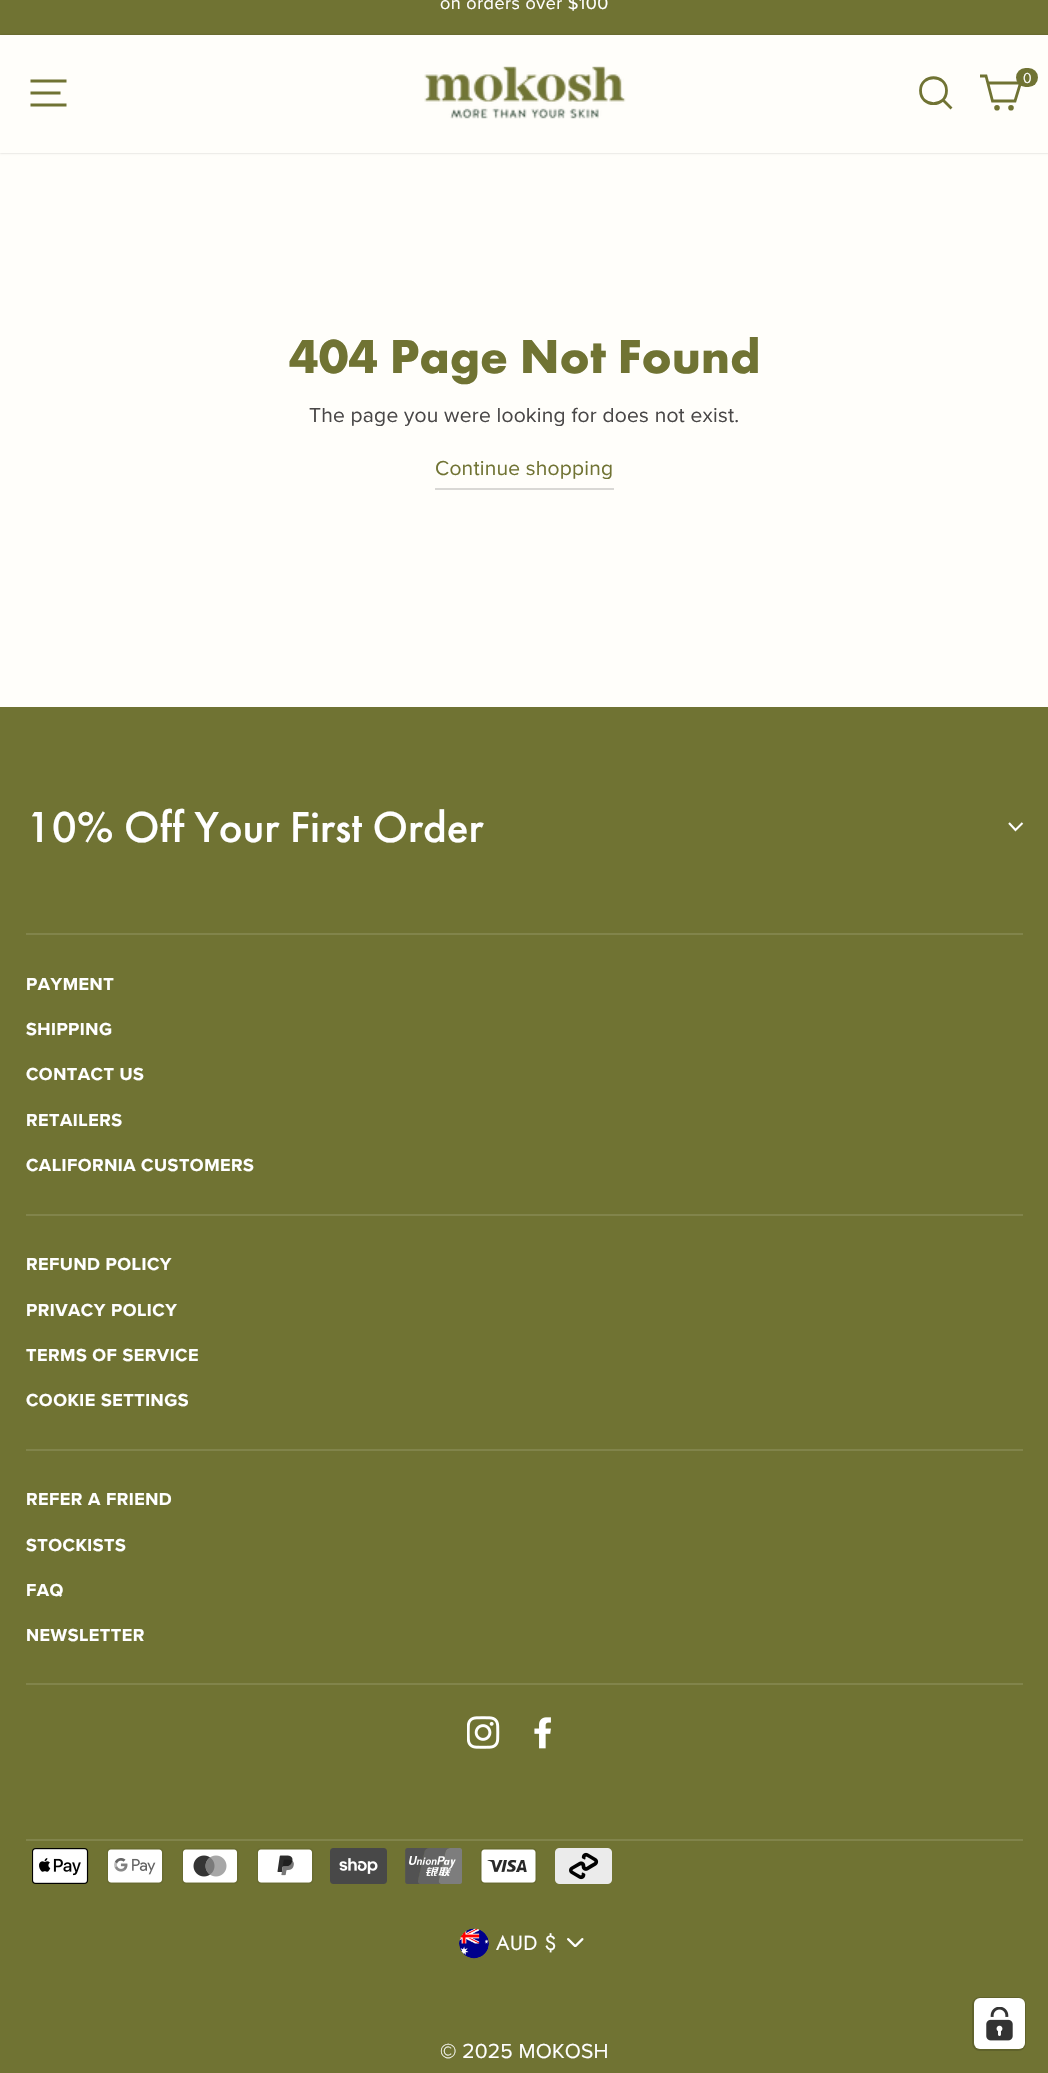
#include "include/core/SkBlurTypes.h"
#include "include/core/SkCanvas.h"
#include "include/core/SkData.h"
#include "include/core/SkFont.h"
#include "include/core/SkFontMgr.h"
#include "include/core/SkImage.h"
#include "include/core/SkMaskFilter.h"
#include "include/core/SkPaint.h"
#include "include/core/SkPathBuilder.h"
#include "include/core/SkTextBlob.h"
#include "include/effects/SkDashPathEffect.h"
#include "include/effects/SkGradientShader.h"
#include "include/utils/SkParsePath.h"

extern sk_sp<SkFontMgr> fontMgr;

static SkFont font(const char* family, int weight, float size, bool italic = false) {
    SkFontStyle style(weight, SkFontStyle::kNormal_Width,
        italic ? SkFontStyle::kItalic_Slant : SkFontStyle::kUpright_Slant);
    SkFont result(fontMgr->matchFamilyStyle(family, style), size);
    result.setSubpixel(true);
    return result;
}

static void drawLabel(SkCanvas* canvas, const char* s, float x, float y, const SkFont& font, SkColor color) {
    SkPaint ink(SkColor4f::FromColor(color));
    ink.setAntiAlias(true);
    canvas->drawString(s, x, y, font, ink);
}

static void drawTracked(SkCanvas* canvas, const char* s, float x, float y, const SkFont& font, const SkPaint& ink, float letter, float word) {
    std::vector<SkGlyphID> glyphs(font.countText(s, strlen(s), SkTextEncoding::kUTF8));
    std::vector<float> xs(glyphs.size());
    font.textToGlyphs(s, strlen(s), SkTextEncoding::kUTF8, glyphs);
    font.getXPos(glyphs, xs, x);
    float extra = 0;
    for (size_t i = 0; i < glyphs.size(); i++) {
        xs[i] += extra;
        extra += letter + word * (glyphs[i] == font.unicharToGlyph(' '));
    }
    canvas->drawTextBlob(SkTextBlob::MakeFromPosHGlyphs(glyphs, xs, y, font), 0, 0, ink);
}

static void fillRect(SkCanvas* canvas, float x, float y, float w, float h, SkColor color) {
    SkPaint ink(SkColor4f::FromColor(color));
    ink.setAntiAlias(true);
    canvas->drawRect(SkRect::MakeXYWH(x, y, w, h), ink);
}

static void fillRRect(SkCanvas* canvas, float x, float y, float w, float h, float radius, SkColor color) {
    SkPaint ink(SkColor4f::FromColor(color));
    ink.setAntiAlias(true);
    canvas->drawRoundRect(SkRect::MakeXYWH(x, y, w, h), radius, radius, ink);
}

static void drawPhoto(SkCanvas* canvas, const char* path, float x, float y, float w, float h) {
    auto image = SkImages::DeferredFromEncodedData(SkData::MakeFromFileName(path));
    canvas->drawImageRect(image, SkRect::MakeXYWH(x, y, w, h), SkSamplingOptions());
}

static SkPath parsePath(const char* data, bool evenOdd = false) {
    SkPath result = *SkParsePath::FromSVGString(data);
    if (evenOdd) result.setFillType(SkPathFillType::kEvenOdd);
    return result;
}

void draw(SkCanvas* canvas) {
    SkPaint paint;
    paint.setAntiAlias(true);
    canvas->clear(0xFFFFFEFA);
    fillRect(canvas, 0, 0, 1048, 35, 0xFF707333);
    SkFont font1 = font("Proxima Nova", 400, 18);
    paint.setColor(0xFFFFFFFF);
    drawTracked(canvas, "on orders over $100", 440, 9, font1, paint, 0.5f, 0);
    canvas->save();
    canvas->clipPath(parsePath("M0 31H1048V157H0ZM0 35H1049V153H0Z", true), true);
    paint.setColor(0x33000000);
    paint.setMaskFilter(SkMaskFilter::MakeBlur(kNormal_SkBlurStyle, 1));
    canvas->drawRect(SkRect::MakeXYWH(0, 35, 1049, 118), paint);
    paint.setMaskFilter(nullptr);
    canvas->restore();
    paint.setStroke(true);
    paint.setStrokeWidth(2.8f);
    paint.setColor(0xFF707333);
    canvas->drawPath(parsePath("M30.5 81H66.5M30.5 93H60.5M30.5 105H66.5"), paint);
    drawPhoto(canvas, "assets/img1.png", 424, 66, 202, 53);
    canvas->drawPath(parsePath("M946.5 90.5C946.5 108 920.5 108 920.5 90.5C920.5 73.5 946.5 73.5 946.5 90.5ZM951.5 108.5L943 100"), paint);
    canvas->drawPath(parsePath("M988 83H1020.5L1015 101H992.5L986 76H980"), paint);
    canvas->drawCircle(997, 107.8f, 1.4f, paint);
    canvas->drawCircle(1011, 107.8f, 1.4f, paint);
    fillRRect(canvas, 1016, 68, 22, 19, 9.5f, 0xFF707333);
    SkFont font2 = font("Futura PT", 400, 15);
    drawLabel(canvas, "0", 1023, 83, font2, 0xFFFFFFFF);
    SkFont font3 = font("Futura PT", 700, 49.5f);
    drawLabel(canvas, "404 Page Not Found", 289, 373, font3, 0xFF707333);
    SkFont font4 = font("Proxima Nova", 400, 21);
    paint.setStroke(false);
    paint.setColor(0xFF494747);
    drawTracked(canvas, "The page you were looking for does not exist.", 309, 422, font4, paint, 0.2f, 0);
    fillRect(canvas, 435, 488, 179, 2, 0xFFD9D8D5);
    paint.setColor(0xFF707333);
    drawTracked(canvas, "Continue shopping", 435, 475, font4, paint, 0.2f, 0);
    fillRect(canvas, 0, 707, 1048, 1366, 0xFF707333);
    SkFont font5 = font("Futura PT", 500, 45);
    drawLabel(canvas, "10% Off Your First Order", 26, 842, font5, 0xFFFFFFFF);
    paint.setStroke(true);
    paint.setStrokeWidth(2.1f);
    paint.setColor(0xFFFFFFFF);
    canvas->drawPath(parsePath("M1009 823L1015.5 830L1022.5 823"), paint);
    fillRect(canvas, 26, 933, 997, 2, 0xFF81844B);
    SkFont font6 = font("Proxima Nova", 700, 18);
    paint.setStroke(false);
    drawTracked(canvas, "PAYMENT", 26, 990, font6, paint, 0.5f, 0);
    drawTracked(canvas, "SHIPPING", 26, 1035, font6, paint, 0.5f, 0);
    drawTracked(canvas, "CONTACT US", 26, 1080, font6, paint, 0.5f, 0);
    drawTracked(canvas, "RETAILERS", 26, 1126, font6, paint, 0.5f, 0);
    drawTracked(canvas, "CALIFORNIA CUSTOMERS", 26, 1171, font6, paint, 0.5f, 0);
    fillRect(canvas, 26, 1214, 997, 2, 0xFF81844B);
    drawTracked(canvas, "REFUND POLICY", 26, 1270, font6, paint, 0.5f, 0);
    drawTracked(canvas, "PRIVACY POLICY", 26, 1316, font6, paint, 0.5f, 0);
    drawTracked(canvas, "TERMS OF SERVICE", 26, 1361, font6, paint, 0.5f, 0);
    drawTracked(canvas, "COOKIE SETTINGS", 26, 1406, font6, paint, 0.5f, 0);
    fillRect(canvas, 26, 1449, 997, 2, 0xFF81844B);
    drawTracked(canvas, "REFER A FRIEND", 26, 1505, font6, paint, 0.5f, 0);
    drawTracked(canvas, "STOCKISTS", 26, 1551, font6, paint, 0.5f, 0);
    drawTracked(canvas, "FAQ", 26, 1596, font6, paint, 0.5f, 0);
    drawTracked(canvas, "NEWSLETTER", 26, 1641, font6, paint, 0.5f, 0);
    fillRect(canvas, 26, 1683, 997, 2, 0xFF81844B);
    drawPhoto(canvas, "assets/img2.png", 467, 1716, 33, 33);
    drawPhoto(canvas, "assets/img3.png", 534, 1717, 17, 32);
    fillRect(canvas, 26, 1839, 997, 2, 0xFF81844B);
    drawPhoto(canvas, "assets/img4.png", 32, 1848, 57, 36);
    drawPhoto(canvas, "assets/img5.png", 107, 1848, 57, 36);
    drawPhoto(canvas, "assets/img6.png", 182, 1848, 57, 36);
    drawPhoto(canvas, "assets/img7.png", 257, 1848, 57, 36);
    drawPhoto(canvas, "assets/img8.png", 330, 1848, 57, 36);
    drawPhoto(canvas, "assets/img9.png", 405, 1848, 57, 36);
    drawPhoto(canvas, "assets/img10.png", 480, 1848, 57, 36);
    drawPhoto(canvas, "assets/img11.png", 555, 1848, 57, 36);
    drawPhoto(canvas, "assets/img12.png", 567, 1938, 17, 9);
    drawPhoto(canvas, "assets/img13.png", 459, 1928, 30, 31);
    SkFont font7 = font("Jost", 400, 20.5f);
    drawTracked(canvas, "AUD $", 496, 1950, font7, paint, 0.5f, 0);
    drawTracked(canvas, "© 2025 MOKOSH", 440, 2058, font4, paint, 0.2f, 0);
    paint.setStroke(true);
    paint.setStrokeWidth(2);
    paint.setColor(0xFF5F622B);
    canvas->drawRoundRect(SkRect::MakeXYWH(973, 1998, 52, 52), 7, 7, paint);
    fillRRect(canvas, 974, 1998, 51, 51, 6, 0xFFFFFFFF);
    drawPhoto(canvas, "assets/img14.png", 986, 2007, 27, 34);
}
